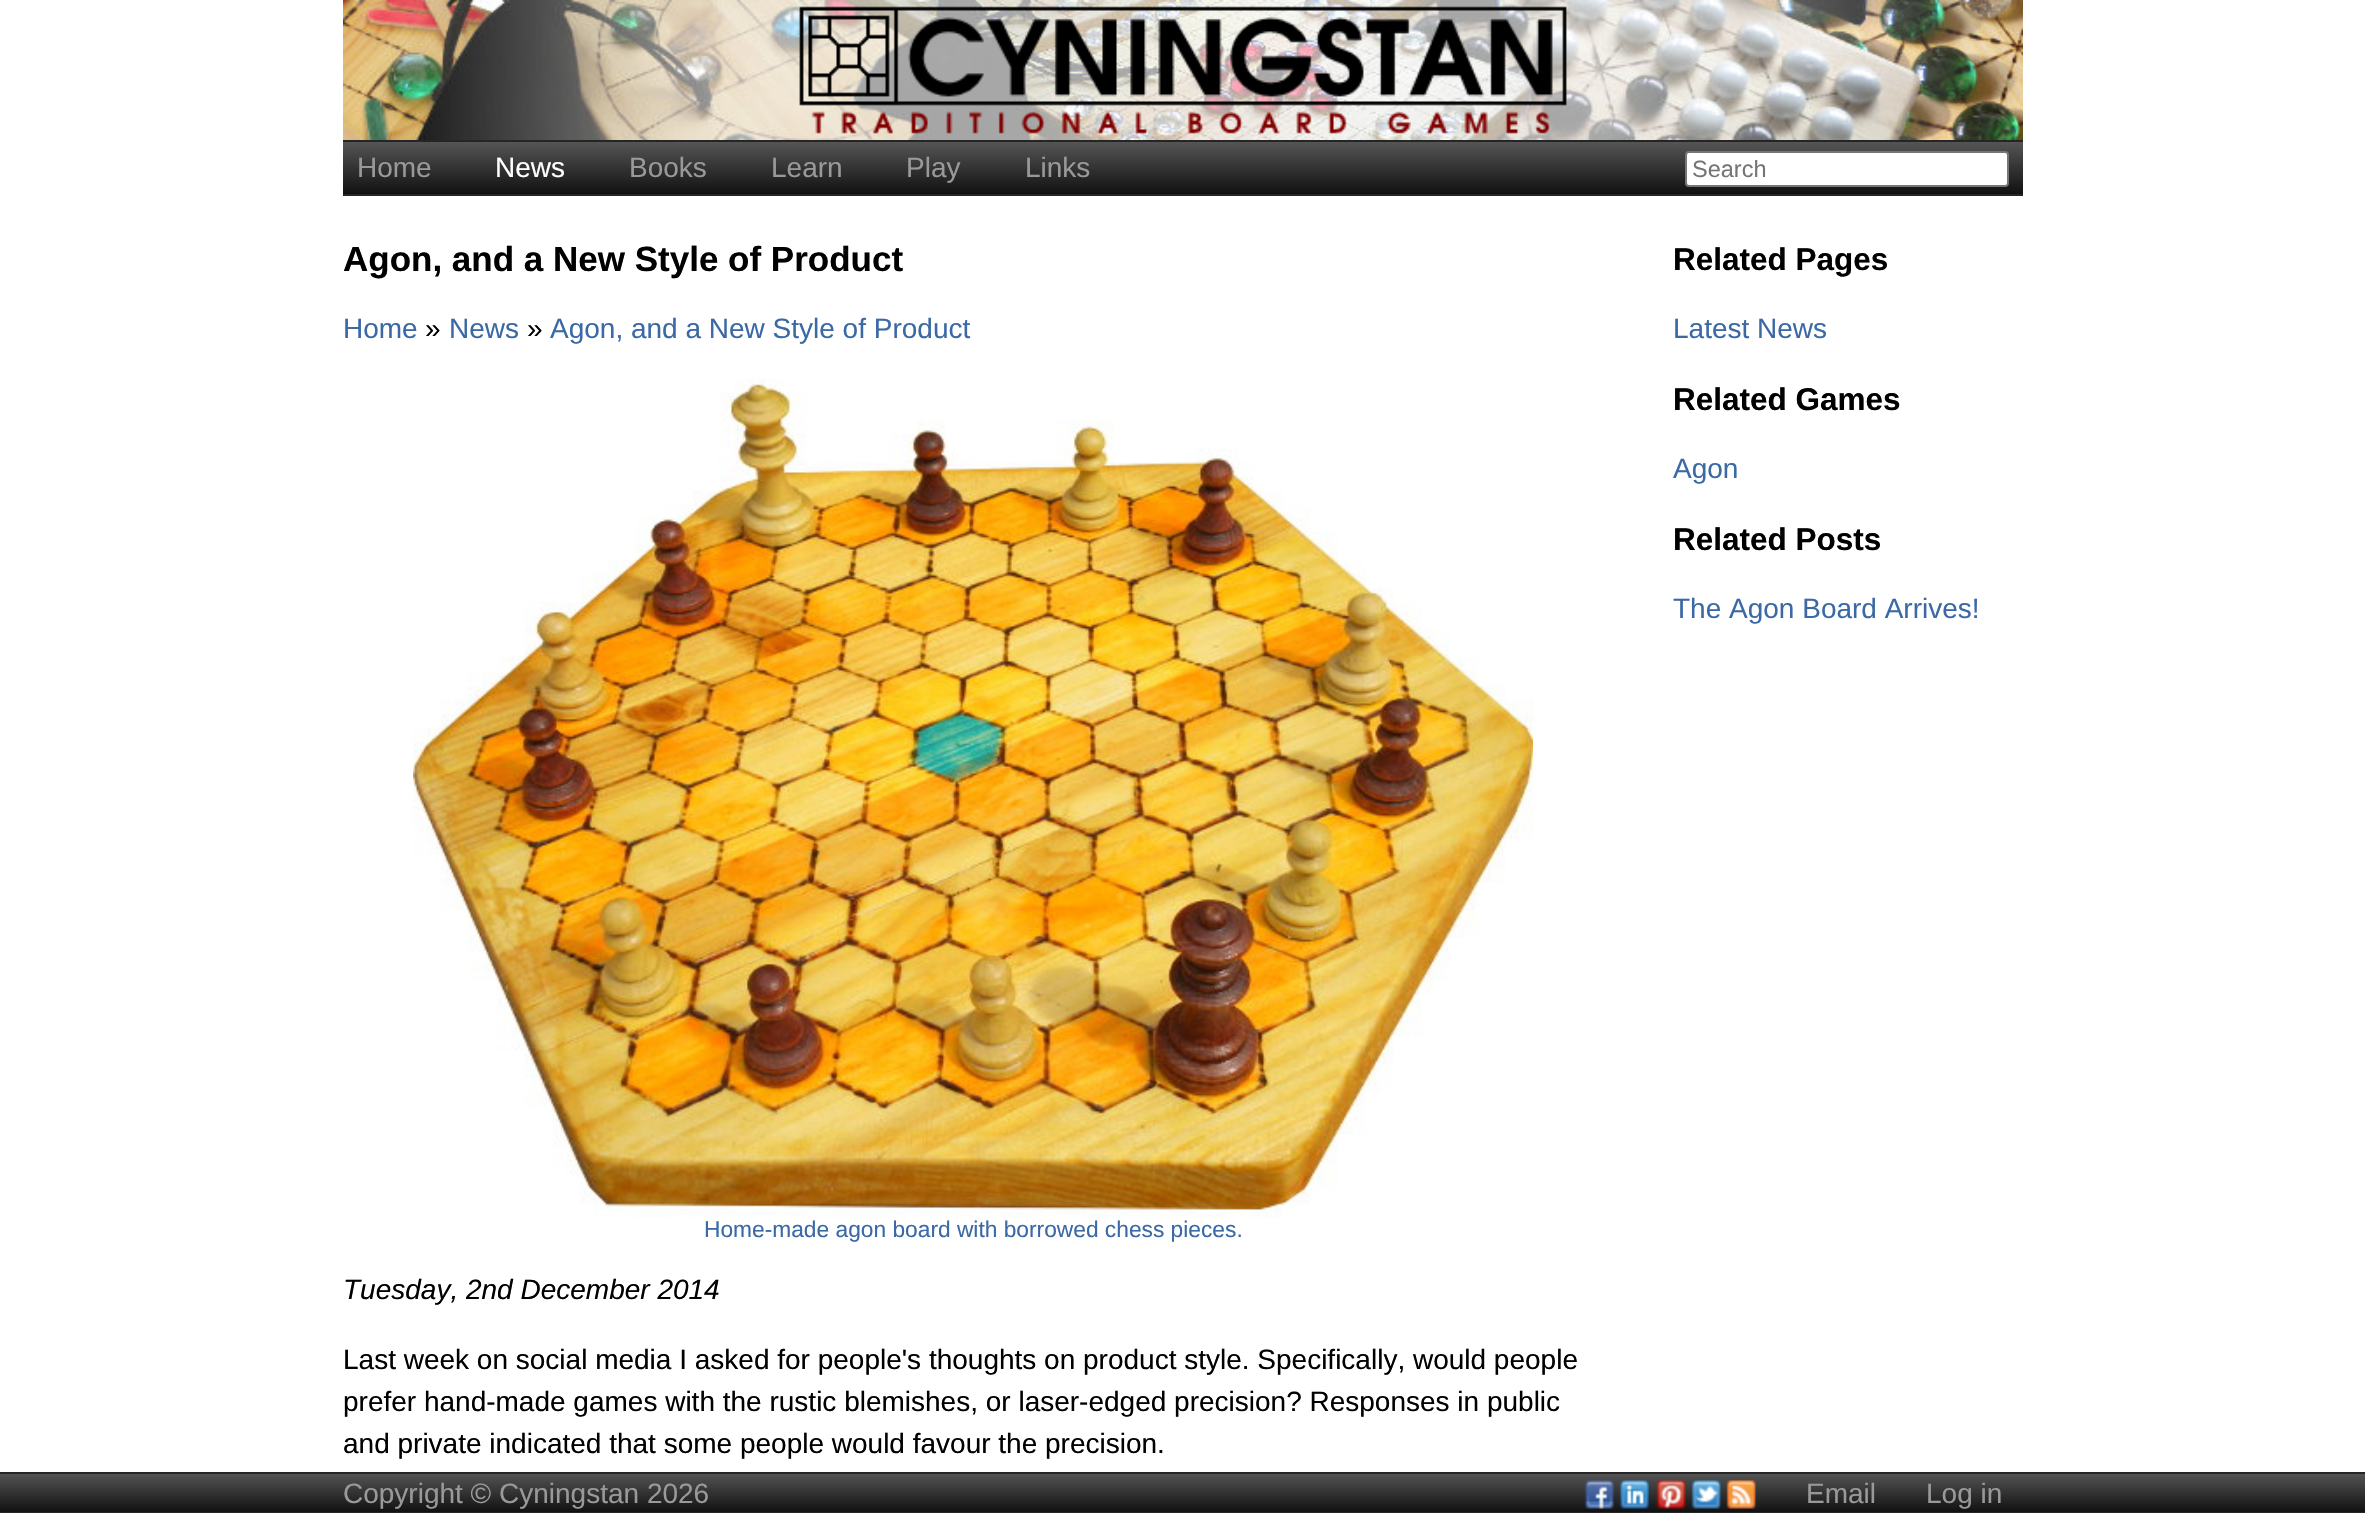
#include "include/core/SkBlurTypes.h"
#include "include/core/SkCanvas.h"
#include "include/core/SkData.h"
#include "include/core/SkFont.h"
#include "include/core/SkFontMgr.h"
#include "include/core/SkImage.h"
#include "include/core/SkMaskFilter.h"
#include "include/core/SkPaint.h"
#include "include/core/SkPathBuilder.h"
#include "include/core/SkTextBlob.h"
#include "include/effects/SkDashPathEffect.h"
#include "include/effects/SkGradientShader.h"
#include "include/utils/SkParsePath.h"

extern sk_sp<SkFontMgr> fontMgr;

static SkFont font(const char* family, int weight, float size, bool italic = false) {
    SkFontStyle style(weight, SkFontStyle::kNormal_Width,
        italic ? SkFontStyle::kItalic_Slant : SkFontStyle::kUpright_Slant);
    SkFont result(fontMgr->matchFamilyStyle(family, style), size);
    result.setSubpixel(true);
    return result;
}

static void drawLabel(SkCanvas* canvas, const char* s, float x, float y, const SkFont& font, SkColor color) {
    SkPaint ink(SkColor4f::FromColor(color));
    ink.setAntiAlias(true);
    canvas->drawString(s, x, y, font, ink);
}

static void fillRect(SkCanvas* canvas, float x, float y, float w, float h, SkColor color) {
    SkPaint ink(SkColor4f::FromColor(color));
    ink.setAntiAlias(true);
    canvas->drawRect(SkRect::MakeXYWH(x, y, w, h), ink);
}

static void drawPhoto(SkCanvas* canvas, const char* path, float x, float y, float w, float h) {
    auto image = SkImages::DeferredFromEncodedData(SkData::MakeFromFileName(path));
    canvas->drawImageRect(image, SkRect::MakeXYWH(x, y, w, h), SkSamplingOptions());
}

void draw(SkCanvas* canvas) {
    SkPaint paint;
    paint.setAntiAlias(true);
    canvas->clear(0xFFFFFFFF);
    drawPhoto(canvas, "assets/img1.png", 343, 0, 1680, 140);
    {
        const SkColor colors[] = {0xFF555555, 0xFF111111};
        const float stops[] = {0, 1};
        const SkPoint ends[] = {{1183, 142}, {1183, 194}};
        paint.setShader(SkGradientShader::MakeLinear(ends, colors, stops, 2, SkTileMode::kClamp));
        paint.setAlpha(255);
    }
    canvas->drawRect(SkRect::MakeXYWH(343, 142, 1680, 52), paint);
    fillRect(canvas, 343, 140, 1680, 2, 0xFF252525);
    fillRect(canvas, 343, 194, 1680, 2, 0xFF252525);
    SkFont font1 = font("Liberation Sans", 400, 28);
    drawLabel(canvas, "Home", 357, 177, font1, 0xFF999999);
    drawLabel(canvas, "News", 495, 177, font1, 0xFFFFFFFF);
    drawLabel(canvas, "Books", 629, 177, font1, 0xFF999999);
    drawLabel(canvas, "Learn", 771, 177, font1, 0xFF999999);
    drawLabel(canvas, "Play", 906, 177, font1, 0xFF999999);
    drawLabel(canvas, "Links", 1025, 177, font1, 0xFF999999);
    paint.setShader(nullptr);
    paint.setColor(0xFFFFFFFF);
    canvas->drawRoundRect(SkRect::MakeXYWH(1686, 152, 322, 34), 3, 3, paint);
    paint.setStroke(true);
    paint.setStrokeWidth(2);
    paint.setColor(0xFF767676);
    canvas->drawRoundRect(SkRect::MakeXYWH(1686, 152, 322, 34), 3, 3, paint);
    SkFont font2 = font("Liberation Sans", 400, 23.5f);
    drawLabel(canvas, "Search", 1692, 177, font2, 0xFF757575);
    SkFont font3 = font("Liberation Sans", 700, 35);
    drawLabel(canvas, "Agon, and a New Style of Product", 343, 271, font3, 0xFF000000);
    drawLabel(canvas, "Home", 343, 338, font1, 0xFF3A69A5);
    drawLabel(canvas, "»", 425, 338, font1, 0xFF000000);
    drawLabel(canvas, "News", 449, 338, font1, 0xFF3A69A5);
    drawLabel(canvas, "»", 527, 338, font1, 0xFF000000);
    drawLabel(canvas, "Agon, and a New Style of Product", 550, 338, font1, 0xFF3A69A5);
    drawPhoto(canvas, "assets/img2.png", 413, 378, 1120, 840);
    SkFont font4 = font("Liberation Sans", 400, 22.75f);
    drawLabel(canvas, "Home-made agon board with borrowed chess pieces.", 704, 1237, font4, 0xFF3A69A5);
    SkFont font5 = font("Liberation Sans", 400, 28, true);
    drawLabel(canvas, "Tuesday, 2nd December 2014", 343, 1299, font5, 0xFF000000);
    drawLabel(canvas, "Last week on social media I asked for people's thoughts on product style. Specifically, would people", 343, 1369, font1, 0xFF000000);
    drawLabel(canvas, "prefer hand-made games with the rustic blemishes, or laser-edged precision? Responses in public", 343, 1411, font1, 0xFF000000);
    drawLabel(canvas, "and private indicated that some people would favour the precision.", 343, 1453, font1, 0xFF000000);
    SkFont font6 = font("Liberation Sans", 700, 31.5f);
    drawLabel(canvas, "Related Pages", 1673, 270, font6, 0xFF000000);
    drawLabel(canvas, "Latest News", 1673, 338, font1, 0xFF3A69A5);
    drawLabel(canvas, "Related Games", 1673, 410, font6, 0xFF000000);
    drawLabel(canvas, "Agon", 1673, 478, font1, 0xFF3A69A5);
    drawLabel(canvas, "Related Posts", 1673, 550, font6, 0xFF000000);
    drawLabel(canvas, "The Agon Board Arrives!", 1673, 618, font1, 0xFF3A69A5);
    paint.setStroke(false);
    {
        const SkColor colors[] = {0xFF555555, 0xFF111111};
        const float stops[] = {0, 1};
        const SkPoint ends[] = {{1183, 1473}, {1183, 1512}};
        paint.setShader(SkGradientShader::MakeLinear(ends, colors, stops, 2, SkTileMode::kClamp));
        paint.setAlpha(255);
    }
    canvas->drawRect(SkRect::MakeXYWH(0, 1474, 2365, 38), paint);
    fillRect(canvas, 0, 1472, 2365, 2, 0xFF252525);
    fillRect(canvas, 0, 1512, 2365, 1, 0xFF252525);
    drawLabel(canvas, "Copyright © Cyningstan 2026", 343, 1503, font1, 0xFF999999);
    drawPhoto(canvas, "assets/img3.png", 1584, 1480, 30, 29);
    drawPhoto(canvas, "assets/img4.png", 1619, 1480, 30, 29);
    drawPhoto(canvas, "assets/img5.png", 1656, 1480, 30, 29);
    drawPhoto(canvas, "assets/img6.png", 1691, 1480, 30, 29);
    drawPhoto(canvas, "assets/img7.png", 1726, 1480, 30, 29);
    drawLabel(canvas, "Email", 1806, 1503, font1, 0xFF999999);
    drawLabel(canvas, "Log in", 1926, 1503, font1, 0xFF999999);
}
